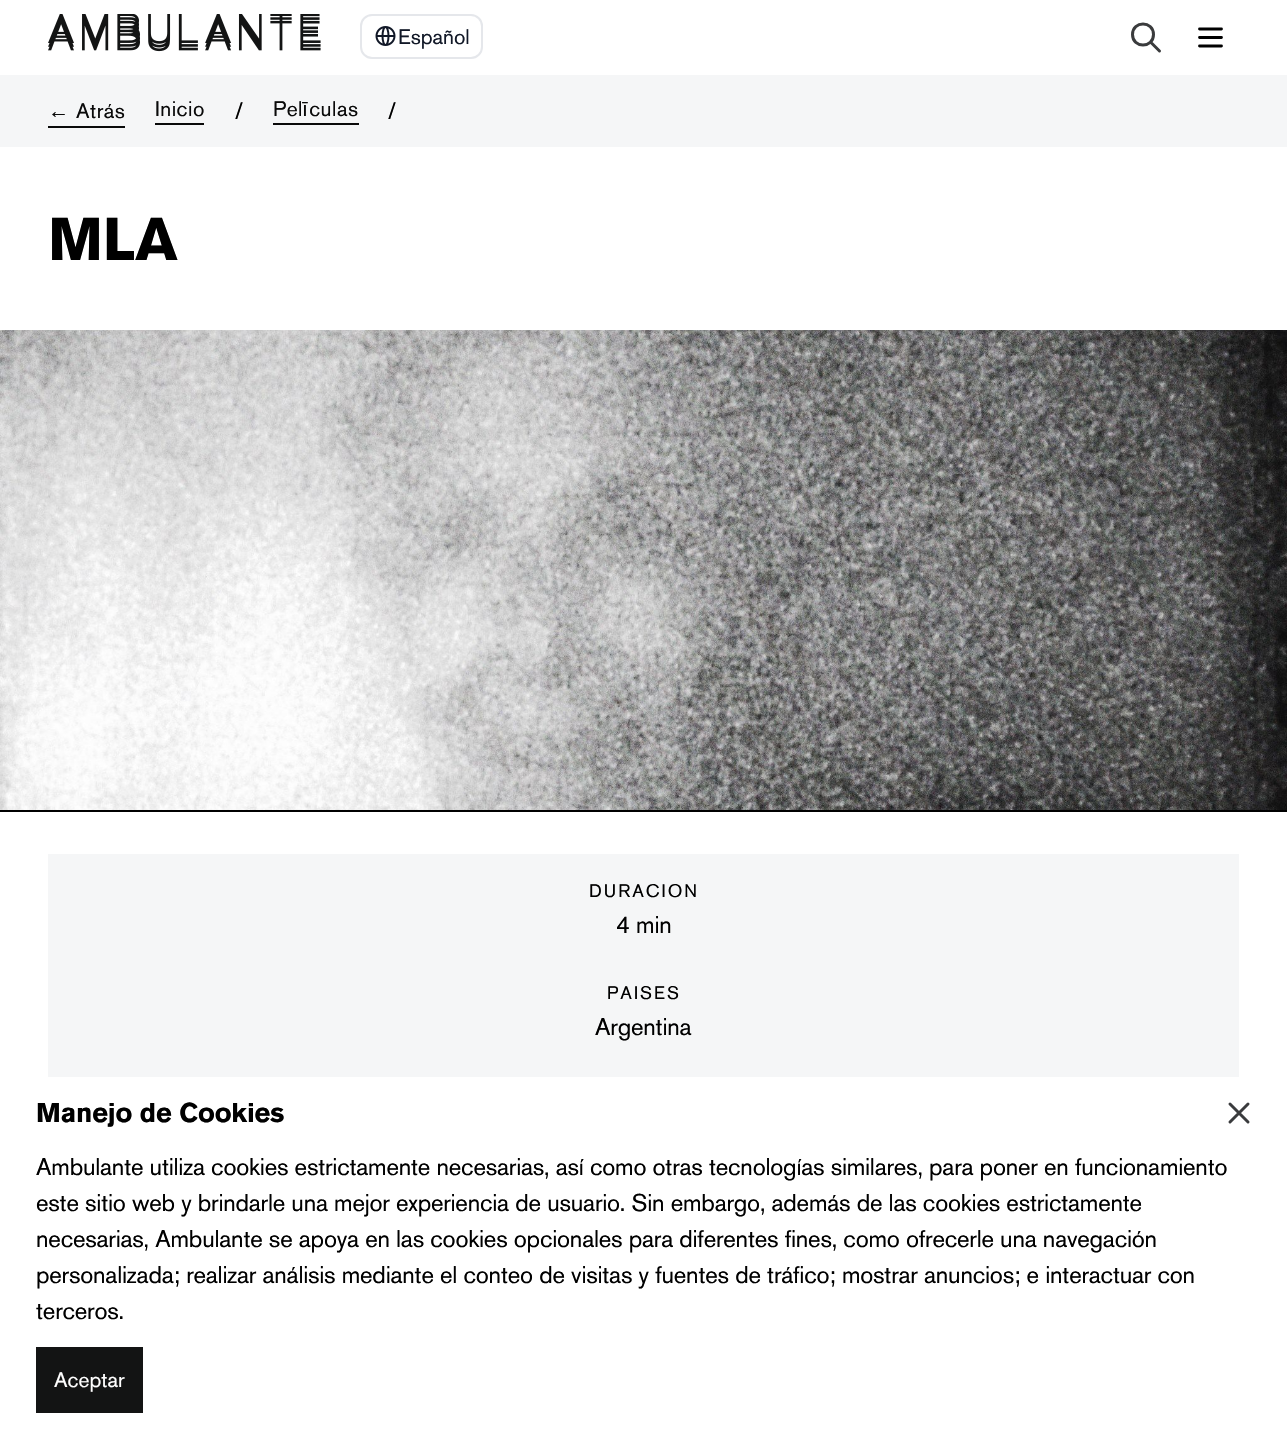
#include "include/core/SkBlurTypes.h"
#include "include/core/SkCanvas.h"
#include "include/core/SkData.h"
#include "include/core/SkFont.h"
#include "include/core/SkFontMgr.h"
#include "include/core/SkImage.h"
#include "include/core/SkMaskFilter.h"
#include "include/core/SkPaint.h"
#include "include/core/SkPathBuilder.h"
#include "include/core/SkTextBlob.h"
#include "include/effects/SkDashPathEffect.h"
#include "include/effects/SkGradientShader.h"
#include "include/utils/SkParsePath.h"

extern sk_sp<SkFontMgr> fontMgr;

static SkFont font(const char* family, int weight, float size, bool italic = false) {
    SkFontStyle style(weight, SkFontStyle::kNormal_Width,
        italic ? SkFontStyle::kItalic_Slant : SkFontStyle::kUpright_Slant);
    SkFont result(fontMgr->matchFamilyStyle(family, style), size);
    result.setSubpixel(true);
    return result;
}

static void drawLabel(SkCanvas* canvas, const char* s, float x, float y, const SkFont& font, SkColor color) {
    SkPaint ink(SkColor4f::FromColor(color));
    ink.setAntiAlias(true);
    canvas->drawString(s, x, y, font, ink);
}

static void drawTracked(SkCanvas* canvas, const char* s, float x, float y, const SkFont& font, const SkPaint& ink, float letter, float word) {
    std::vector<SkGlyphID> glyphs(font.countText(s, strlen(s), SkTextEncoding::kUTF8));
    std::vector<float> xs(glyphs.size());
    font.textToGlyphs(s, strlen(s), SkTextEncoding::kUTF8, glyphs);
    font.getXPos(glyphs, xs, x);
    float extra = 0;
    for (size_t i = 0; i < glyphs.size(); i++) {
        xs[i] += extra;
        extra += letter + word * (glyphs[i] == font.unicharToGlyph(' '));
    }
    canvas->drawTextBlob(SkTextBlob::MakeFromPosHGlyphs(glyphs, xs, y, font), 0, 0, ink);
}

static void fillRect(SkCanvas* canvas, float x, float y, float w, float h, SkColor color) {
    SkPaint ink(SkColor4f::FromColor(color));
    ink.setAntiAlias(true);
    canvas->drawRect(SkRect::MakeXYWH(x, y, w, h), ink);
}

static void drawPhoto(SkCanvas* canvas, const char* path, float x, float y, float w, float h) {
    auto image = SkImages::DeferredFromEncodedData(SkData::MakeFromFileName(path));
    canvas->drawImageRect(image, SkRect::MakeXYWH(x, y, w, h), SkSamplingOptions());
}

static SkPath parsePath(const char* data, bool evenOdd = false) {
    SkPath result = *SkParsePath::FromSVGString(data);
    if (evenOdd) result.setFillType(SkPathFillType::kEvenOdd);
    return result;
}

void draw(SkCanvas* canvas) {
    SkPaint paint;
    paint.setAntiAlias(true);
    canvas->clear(0xFFFFFFFF);
    drawPhoto(canvas, "assets/img1.png", 48, 14, 273, 38);
    paint.setStroke(true);
    paint.setStrokeWidth(2);
    paint.setColor(0xFFE5E7EB);
    canvas->drawRoundRect(SkRect::MakeXYWH(361, 15, 121, 43), 11, 11, paint);
    drawPhoto(canvas, "assets/img2.png", 375, 26, 21, 20);
    SkFont font1 = font("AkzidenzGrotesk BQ", 500, 21);
    drawLabel(canvas, "Español", 398, 44, font1, 0xFF111827);
    paint.setStrokeWidth(3);
    paint.setStrokeCap(SkPaint::kRound_Cap);
    paint.setStrokeJoin(SkPaint::kRound_Join);
    paint.setColor(0xFF3A3B3D);
    canvas->drawPath(parsePath("M1159.5 51L1150.5 42M1153.5 34.5C1153.5 48.5 1132.5 48.5 1132.5 34.5C1132.5 20.5 1153.5 20.5 1153.5 34.5Z"), paint);
    paint.setStrokeWidth(2.8f);
    paint.setColor(0xFF000000);
    canvas->drawPath(parsePath("M1199.5 29H1221.5M1199.5 37.5H1221.5M1199.5 46H1221.5"), paint);
    fillRect(canvas, 0, 75, 1287, 72, 0xFFF5F6F7);
    fillRect(canvas, 48, 126, 77, 2, 0xFF0A0A0A);
    SkFont font2 = font("Liberation Sans", 400, 21);
    paint.setStroke(false);
    paint.setColor(0xFF0A0A0A);
    drawTracked(canvas, "←", 48, 118, font2, paint, 0.5f, 0);
    drawTracked(canvas, "Atrás", 76, 118, font1, paint, 0.5f, 0);
    fillRect(canvas, 155, 123, 49, 2, 0xFF0A0A0A);
    drawTracked(canvas, "Inicio", 155, 116, font1, paint, 0.5f, 0);
    SkFont font3 = font("AkzidenzGrotesk BQ", 500, 24);
    drawLabel(canvas, "/", 235, 119, font3, 0xFF000000);
    fillRect(canvas, 273, 123, 86, 2, 0xFF0A0A0A);
    drawTracked(canvas, "Pel culas", 273, 116, font1, paint, 0.5f, 0);
    drawTracked(canvas, "ī", 302, 116, font2, paint, 0.5f, 0);
    drawLabel(canvas, "/", 388, 119, font3, 0xFF000000);
    SkFont font4 = font("AkzidenzGrotesk BQ", 700, 60);
    paint.setColor(0xFF000000);
    drawTracked(canvas, "MLA", 48, 260, font4, paint, -0.19f, 0);
    drawPhoto(canvas, "assets/img3.png", 0, 330, 1287, 480);
    fillRect(canvas, 0, 810, 1287, 2, 0xFF000000);
    fillRect(canvas, 48, 854, 1191, 223, 0xFFF5F6F7);
    SkFont font5 = font("AkzidenzGrotesk BQ", 500, 18);
    drawTracked(canvas, "DURACION", 589, 897, font5, paint, 2, 0);
    drawTracked(canvas, "4 min", 616, 933, font3, paint, -0.19f, 0);
    drawTracked(canvas, "PAISES", 607, 999, font5, paint, 2, 0);
    drawTracked(canvas, "Argentina", 595, 1035, font3, paint, -0.19f, 0);
    SkFont font6 = font("AkzidenzGrotesk BQ", 700, 27);
    drawTracked(canvas, "Manejo de Cookies", 36, 1122, font6, paint, -0.19f, 0);
    paint.setStroke(true);
    paint.setStrokeWidth(3);
    paint.setColor(0xFF3A3B3D);
    canvas->drawPath(parsePath("M1230 1122L1248 1104M1230 1104L1248 1122"), paint);
    paint.setStroke(false);
    paint.setColor(0xFF000000);
    drawTracked(canvas, "Ambulante utiliza cookies estrictamente necesarias, así como otras tecnologías similares, para poner en funcionamiento", 36, 1175, font3, paint, -0.19f, 0);
    drawTracked(canvas, "este sitio web y brindarle una mejor experiencia de usuario. Sin embargo, además de las cookies estrictamente", 36, 1211, font3, paint, -0.19f, 0);
    drawTracked(canvas, "necesarias, Ambulante se apoya en las cookies opcionales para diferentes fines, como ofrecerle una navegación", 36, 1247, font3, paint, -0.19f, 0);
    drawTracked(canvas, "personalizada; realizar análisis mediante el conteo de visitas y fuentes de tráfico; mostrar anuncios; e interactuar con", 36, 1283, font3, paint, -0.19f, 0);
    drawTracked(canvas, "terceros.", 36, 1319, font3, paint, -0.19f, 0);
    fillRect(canvas, 36, 1347, 107, 66, 0xFF131414);
    drawLabel(canvas, "Aceptar", 54, 1387, font1, 0xFFFFFFFF);
}
